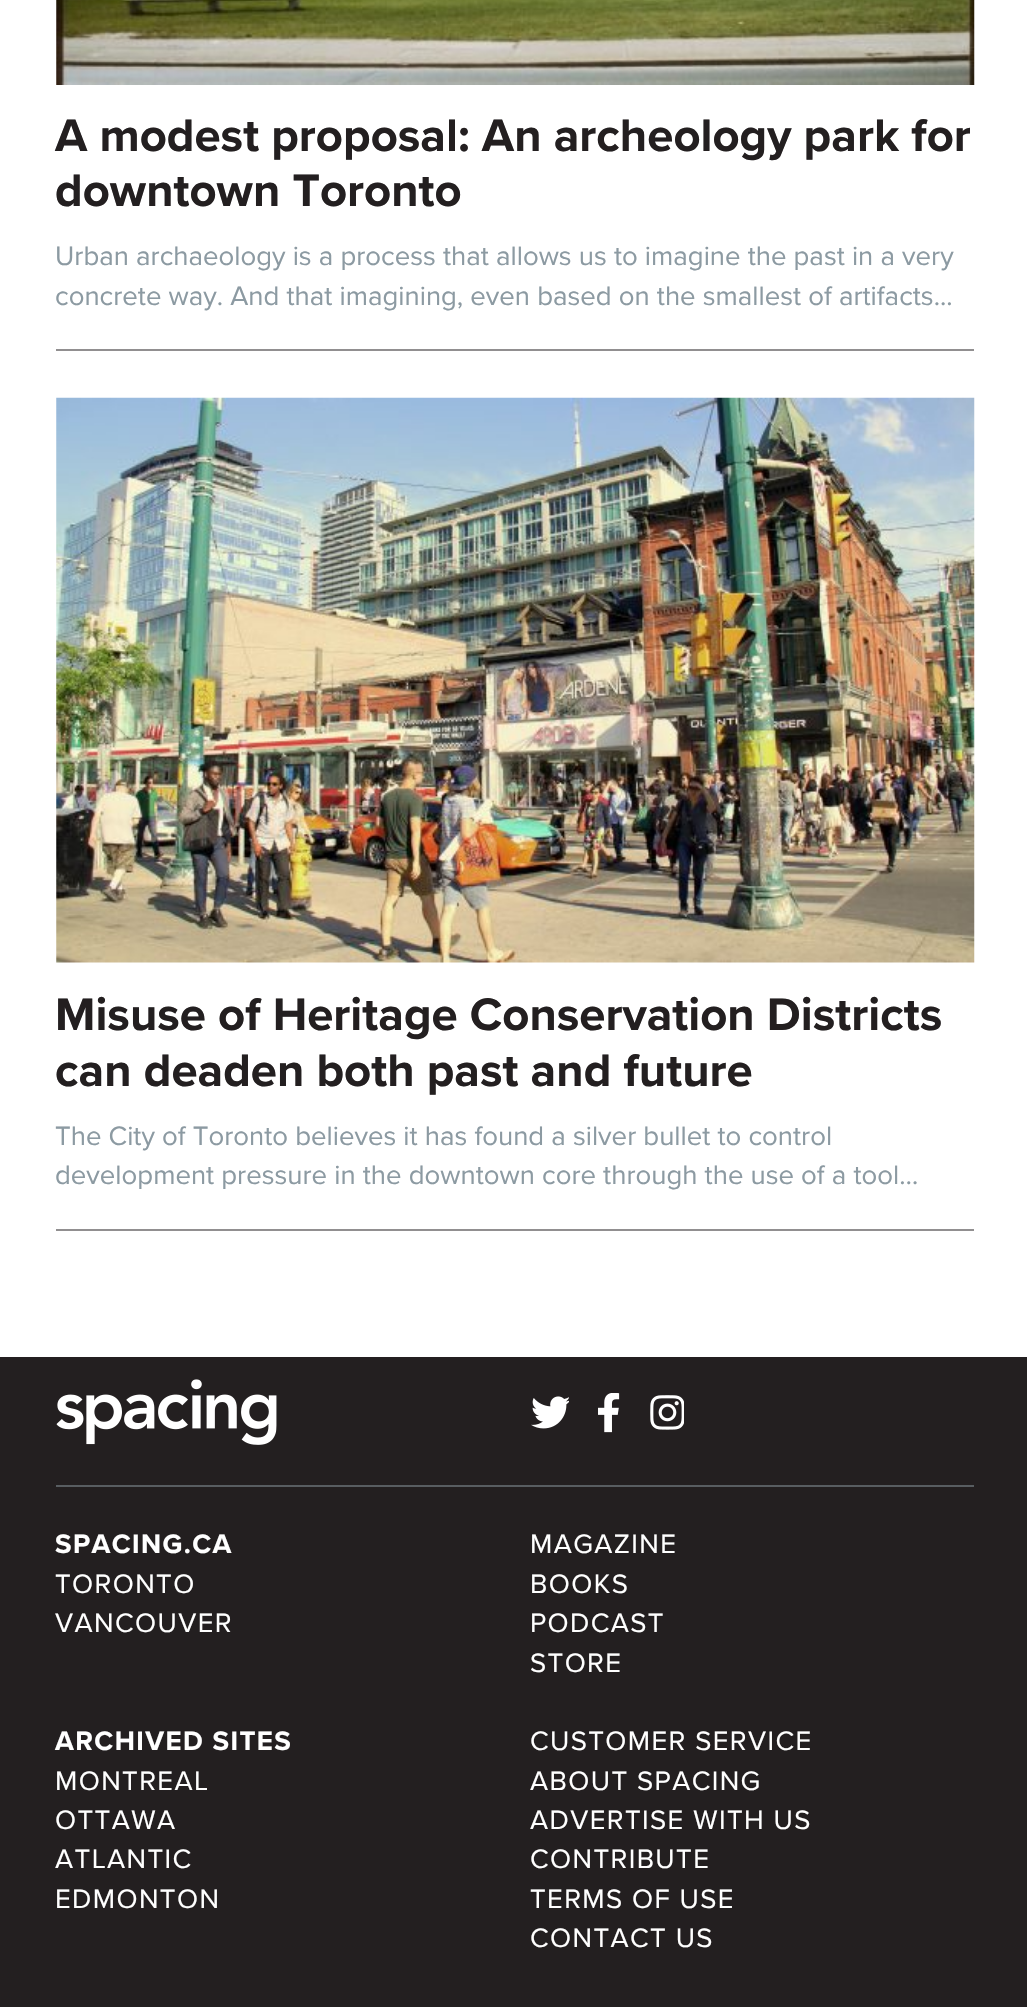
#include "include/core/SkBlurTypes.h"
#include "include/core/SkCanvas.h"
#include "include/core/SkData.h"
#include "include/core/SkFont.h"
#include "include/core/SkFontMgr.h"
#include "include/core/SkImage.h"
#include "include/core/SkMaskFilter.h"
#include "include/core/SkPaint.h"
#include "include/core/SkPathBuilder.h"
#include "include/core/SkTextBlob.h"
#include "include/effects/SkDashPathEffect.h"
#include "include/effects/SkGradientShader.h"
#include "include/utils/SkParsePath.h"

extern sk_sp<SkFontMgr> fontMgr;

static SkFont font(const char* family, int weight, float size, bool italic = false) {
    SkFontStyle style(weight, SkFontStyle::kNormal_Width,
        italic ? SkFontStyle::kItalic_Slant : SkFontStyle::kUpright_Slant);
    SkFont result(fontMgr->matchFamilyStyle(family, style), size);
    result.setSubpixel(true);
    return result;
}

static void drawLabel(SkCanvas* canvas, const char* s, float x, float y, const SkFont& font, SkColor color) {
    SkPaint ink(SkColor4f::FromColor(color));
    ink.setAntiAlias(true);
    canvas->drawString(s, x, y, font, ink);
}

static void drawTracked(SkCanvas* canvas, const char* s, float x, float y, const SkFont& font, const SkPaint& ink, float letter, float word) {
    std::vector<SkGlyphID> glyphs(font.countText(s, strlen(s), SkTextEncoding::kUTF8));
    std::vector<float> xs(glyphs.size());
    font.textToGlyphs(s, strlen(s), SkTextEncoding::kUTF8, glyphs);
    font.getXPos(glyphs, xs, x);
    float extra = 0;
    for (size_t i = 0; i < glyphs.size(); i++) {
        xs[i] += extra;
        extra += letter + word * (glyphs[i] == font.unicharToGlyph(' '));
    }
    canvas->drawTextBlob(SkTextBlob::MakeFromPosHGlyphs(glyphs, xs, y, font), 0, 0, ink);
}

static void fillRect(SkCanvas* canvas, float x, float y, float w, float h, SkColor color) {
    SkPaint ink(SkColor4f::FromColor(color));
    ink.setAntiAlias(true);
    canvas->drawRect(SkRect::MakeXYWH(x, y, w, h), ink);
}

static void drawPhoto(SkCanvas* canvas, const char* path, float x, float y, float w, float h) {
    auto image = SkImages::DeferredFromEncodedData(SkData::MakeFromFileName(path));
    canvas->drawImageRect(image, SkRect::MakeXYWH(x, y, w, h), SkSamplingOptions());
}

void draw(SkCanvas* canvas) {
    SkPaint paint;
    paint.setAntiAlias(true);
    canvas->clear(0xFF231F20);
    fillRect(canvas, 0, 0, 1027, 1357, 0xFFFFFFFF);
    fillRect(canvas, 56, 349, 918, 2, 0xFF918F90);
    drawPhoto(canvas, "assets/img1.png", 56, 0, 919, 85);
    SkFont font1 = font("Proxima Nova", 700, 47.25f);
    drawLabel(canvas, "A modest proposal: An archeology park for", 55, 151, font1, 0xFF231F20);
    drawLabel(canvas, "downtown Toronto", 55, 206, font1, 0xFF231F20);
    SkFont font2 = font("Proxima Nova", 400, 27.55f);
    drawLabel(canvas, "Urban archaeology is a process that allows us to imagine the past in a very", 55, 265, font2, 0xFF8C9AA2);
    drawLabel(canvas, "concrete way. And that imagining, even based on the smallest of artifacts...", 55, 305, font2, 0xFF8C9AA2);
    fillRect(canvas, 56, 1229, 918, 2, 0xFF918F90);
    drawPhoto(canvas, "assets/img2.png", 56, 397, 919, 566);
    drawLabel(canvas, "Misuse of Heritage Conservation Districts", 55, 1030, font1, 0xFF231F20);
    drawLabel(canvas, "can deaden both past and future", 55, 1086, font1, 0xFF231F20);
    drawLabel(canvas, "The City of Toronto believes it has found a silver bullet to control", 55, 1145, font2, 0xFF8C9AA2);
    drawLabel(canvas, "development pressure in the downtown core through the use of a tool…", 55, 1184, font2, 0xFF8C9AA2);
    drawPhoto(canvas, "assets/img3.png", 56, 1379, 221, 66);
    drawPhoto(canvas, "assets/img4.png", 531, 1396, 38, 33);
    drawPhoto(canvas, "assets/img5.png", 598, 1393, 22, 40);
    drawPhoto(canvas, "assets/img6.png", 650, 1395, 34, 35);
    fillRect(canvas, 56, 1485, 918, 2, 0xFF585D61);
    SkFont font3 = font("Proxima Nova", 700, 27.55f);
    paint.setColor(0xFFFFFFFF);
    drawTracked(canvas, "SPACING.CA", 55, 1553, font3, paint, 1.4f, 0);
    drawTracked(canvas, "TORONTO", 55, 1593, font2, paint, 1.4f, 0);
    drawTracked(canvas, "VANCOUVER", 55, 1632, font2, paint, 1.4f, 0);
    drawTracked(canvas, "MAGAZINE", 530, 1553, font2, paint, 1.4f, 0);
    drawTracked(canvas, "BOOKS", 530, 1593, font2, paint, 1.4f, 0);
    drawTracked(canvas, "PODCAST", 530, 1632, font2, paint, 1.4f, 0);
    drawTracked(canvas, "STORE", 530, 1672, font2, paint, 1.4f, 0);
    drawTracked(canvas, "ARCHIVED SITES", 55, 1750, font3, paint, 1.4f, 0);
    drawTracked(canvas, "MONTREAL", 55, 1790, font2, paint, 1.4f, 0);
    drawTracked(canvas, "OTTAWA", 55, 1829, font2, paint, 1.4f, 0);
    drawTracked(canvas, "ATLANTIC", 55, 1868, font2, paint, 1.4f, 0);
    drawTracked(canvas, "EDMONTON", 55, 1908, font2, paint, 1.4f, 0);
    drawTracked(canvas, "CUSTOMER SERVICE", 530, 1750, font2, paint, 1.4f, 0);
    drawTracked(canvas, "ABOUT SPACING", 530, 1790, font2, paint, 1.4f, 0);
    drawTracked(canvas, "ADVERTISE WITH US", 530, 1829, font2, paint, 1.4f, 0);
    drawTracked(canvas, "CONTRIBUTE", 530, 1868, font2, paint, 1.4f, 0);
    drawTracked(canvas, "TERMS OF USE", 530, 1908, font2, paint, 1.4f, 0);
    drawTracked(canvas, "CONTACT US", 530, 1947, font2, paint, 1.4f, 0);
}
